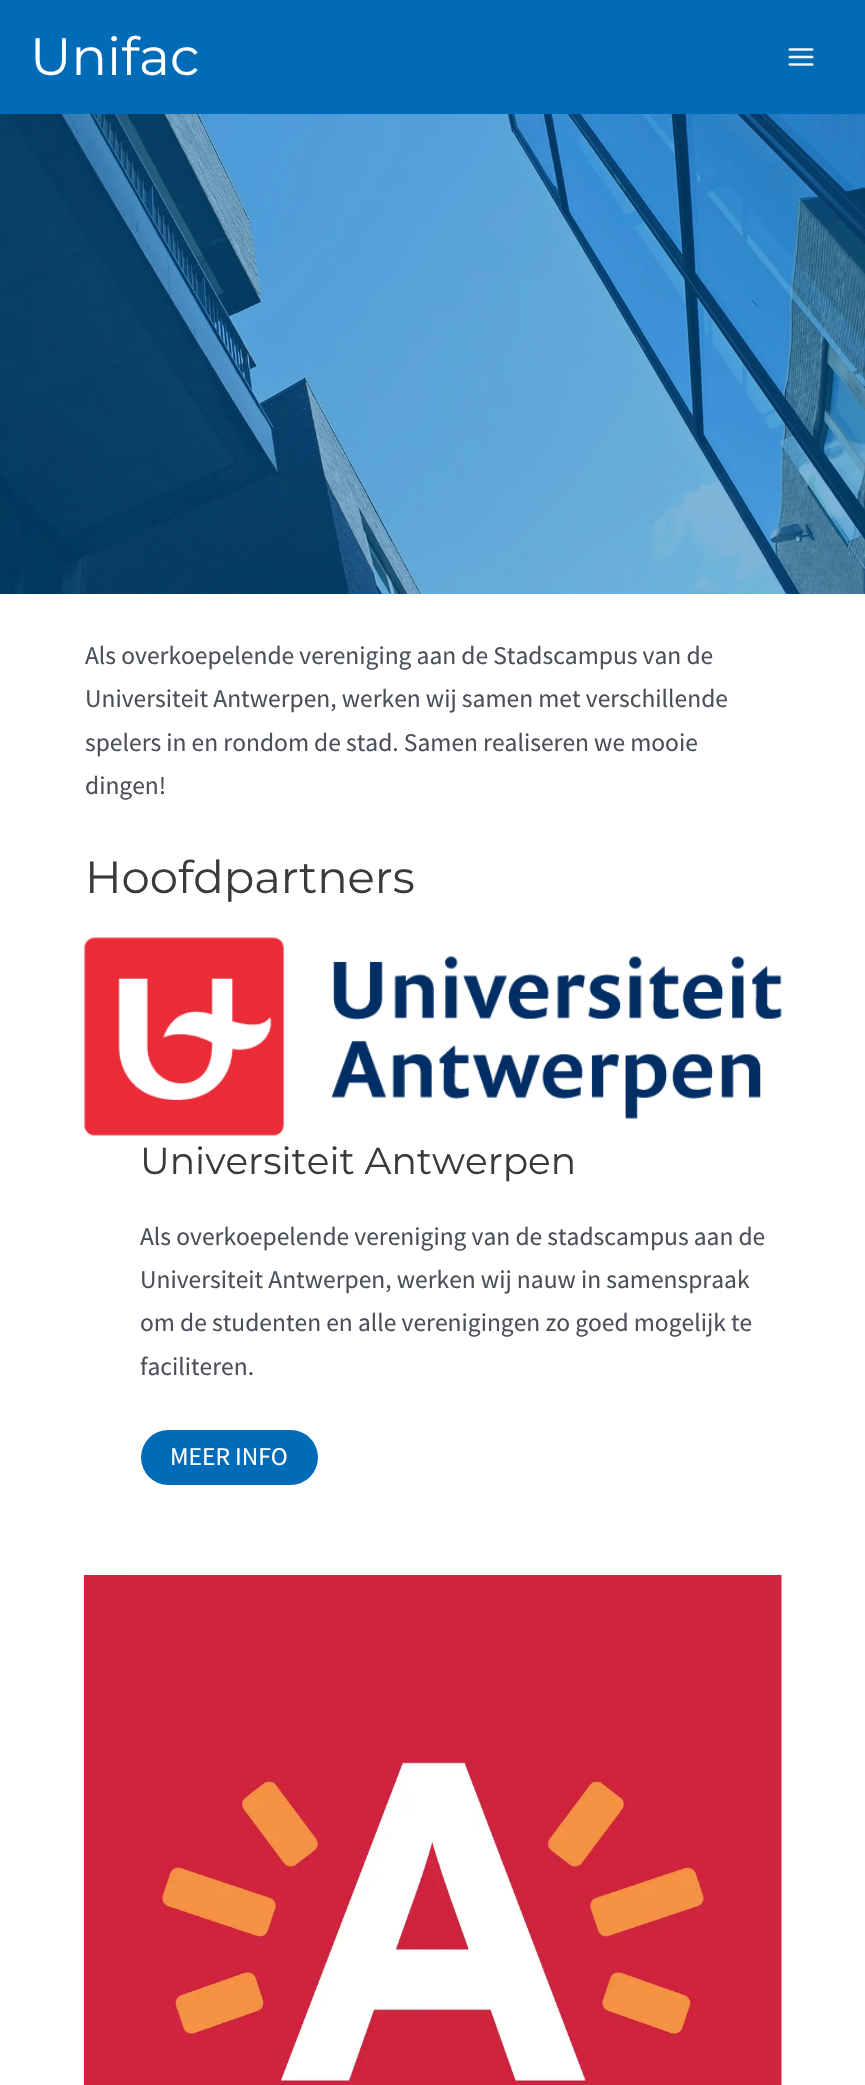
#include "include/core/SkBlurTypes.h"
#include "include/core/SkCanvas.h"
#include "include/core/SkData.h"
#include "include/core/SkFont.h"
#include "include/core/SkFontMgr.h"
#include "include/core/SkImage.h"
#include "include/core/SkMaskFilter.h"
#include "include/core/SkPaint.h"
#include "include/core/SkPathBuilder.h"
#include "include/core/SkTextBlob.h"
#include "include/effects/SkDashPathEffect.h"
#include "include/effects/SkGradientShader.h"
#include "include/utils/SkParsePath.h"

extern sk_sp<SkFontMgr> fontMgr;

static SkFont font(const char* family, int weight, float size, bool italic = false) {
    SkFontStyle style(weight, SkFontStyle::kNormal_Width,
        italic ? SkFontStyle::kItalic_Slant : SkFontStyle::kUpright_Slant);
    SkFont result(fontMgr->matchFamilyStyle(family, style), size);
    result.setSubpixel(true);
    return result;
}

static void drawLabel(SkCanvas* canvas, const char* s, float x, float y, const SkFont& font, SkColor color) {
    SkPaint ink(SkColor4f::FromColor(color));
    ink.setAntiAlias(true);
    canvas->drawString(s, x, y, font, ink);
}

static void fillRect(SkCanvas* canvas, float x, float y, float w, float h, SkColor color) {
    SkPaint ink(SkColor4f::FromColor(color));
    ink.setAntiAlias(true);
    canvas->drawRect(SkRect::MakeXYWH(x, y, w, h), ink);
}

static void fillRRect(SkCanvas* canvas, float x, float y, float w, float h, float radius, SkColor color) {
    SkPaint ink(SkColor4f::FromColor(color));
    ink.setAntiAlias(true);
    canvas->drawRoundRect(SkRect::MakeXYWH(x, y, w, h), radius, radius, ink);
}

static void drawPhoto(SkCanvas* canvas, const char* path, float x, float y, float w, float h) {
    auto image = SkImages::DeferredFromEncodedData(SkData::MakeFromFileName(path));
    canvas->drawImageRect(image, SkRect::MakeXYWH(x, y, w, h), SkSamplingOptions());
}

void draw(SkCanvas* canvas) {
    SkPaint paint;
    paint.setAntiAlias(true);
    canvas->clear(0xFFFFFFFF);
    fillRect(canvas, 0, 0, 865, 114, 0xFF006BB6);
    SkFont font1 = font("Montserrat", 400, 52.5f);
    drawLabel(canvas, "Unifac", 30, 75, font1, 0xFFFFFFFF);
    drawPhoto(canvas, "assets/img1.png", 788, 48, 26, 18);
    drawPhoto(canvas, "assets/img2.png", 0, 114, 865, 480);
    SkFont font2 = font("Source Sans Pro", 400, 25.5f);
    drawLabel(canvas, "Als overkoepelende vereniging aan de Stadscampus van de", 85, 664, font2, 0xFF4B4F58);
    drawLabel(canvas, "Universiteit Antwerpen, werken wij samen met verschillende", 85, 707, font2, 0xFF4B4F58);
    drawLabel(canvas, "spelers in en rondom de stad. Samen realiseren we mooie", 85, 751, font2, 0xFF4B4F58);
    drawLabel(canvas, "dingen!", 85, 794, font2, 0xFF4B4F58);
    SkFont font3 = font("Montserrat", 400, 45);
    drawLabel(canvas, "Hoofdpartners", 85, 893, font3, 0xFF3A3A3A);
    drawPhoto(canvas, "assets/img3.png", 84, 937, 698, 199);
    SkFont font4 = font("Montserrat", 400, 37.5f);
    drawLabel(canvas, "Universiteit Antwerpen", 140, 1174, font4, 0xFF3A3A3A);
    drawLabel(canvas, "Als overkoepelende vereniging van de stadscampus aan de", 140, 1245, font2, 0xFF4B4F58);
    drawLabel(canvas, "Universiteit Antwerpen, werken wij nauw in samenspraak", 140, 1288, font2, 0xFF4B4F58);
    drawLabel(canvas, "om de studenten en alle verenigingen zo goed mogelijk te", 140, 1331, font2, 0xFF4B4F58);
    drawLabel(canvas, "faciliteren.", 140, 1375, font2, 0xFF4B4F58);
    fillRRect(canvas, 141, 1430, 177, 55, 27.5f, 0xFF006BB6);
    drawLabel(canvas, "MEER INFO", 170, 1465, font2, 0xFFFFFFFF);
    drawPhoto(canvas, "assets/img4.png", 84, 1575, 698, 510);
}
